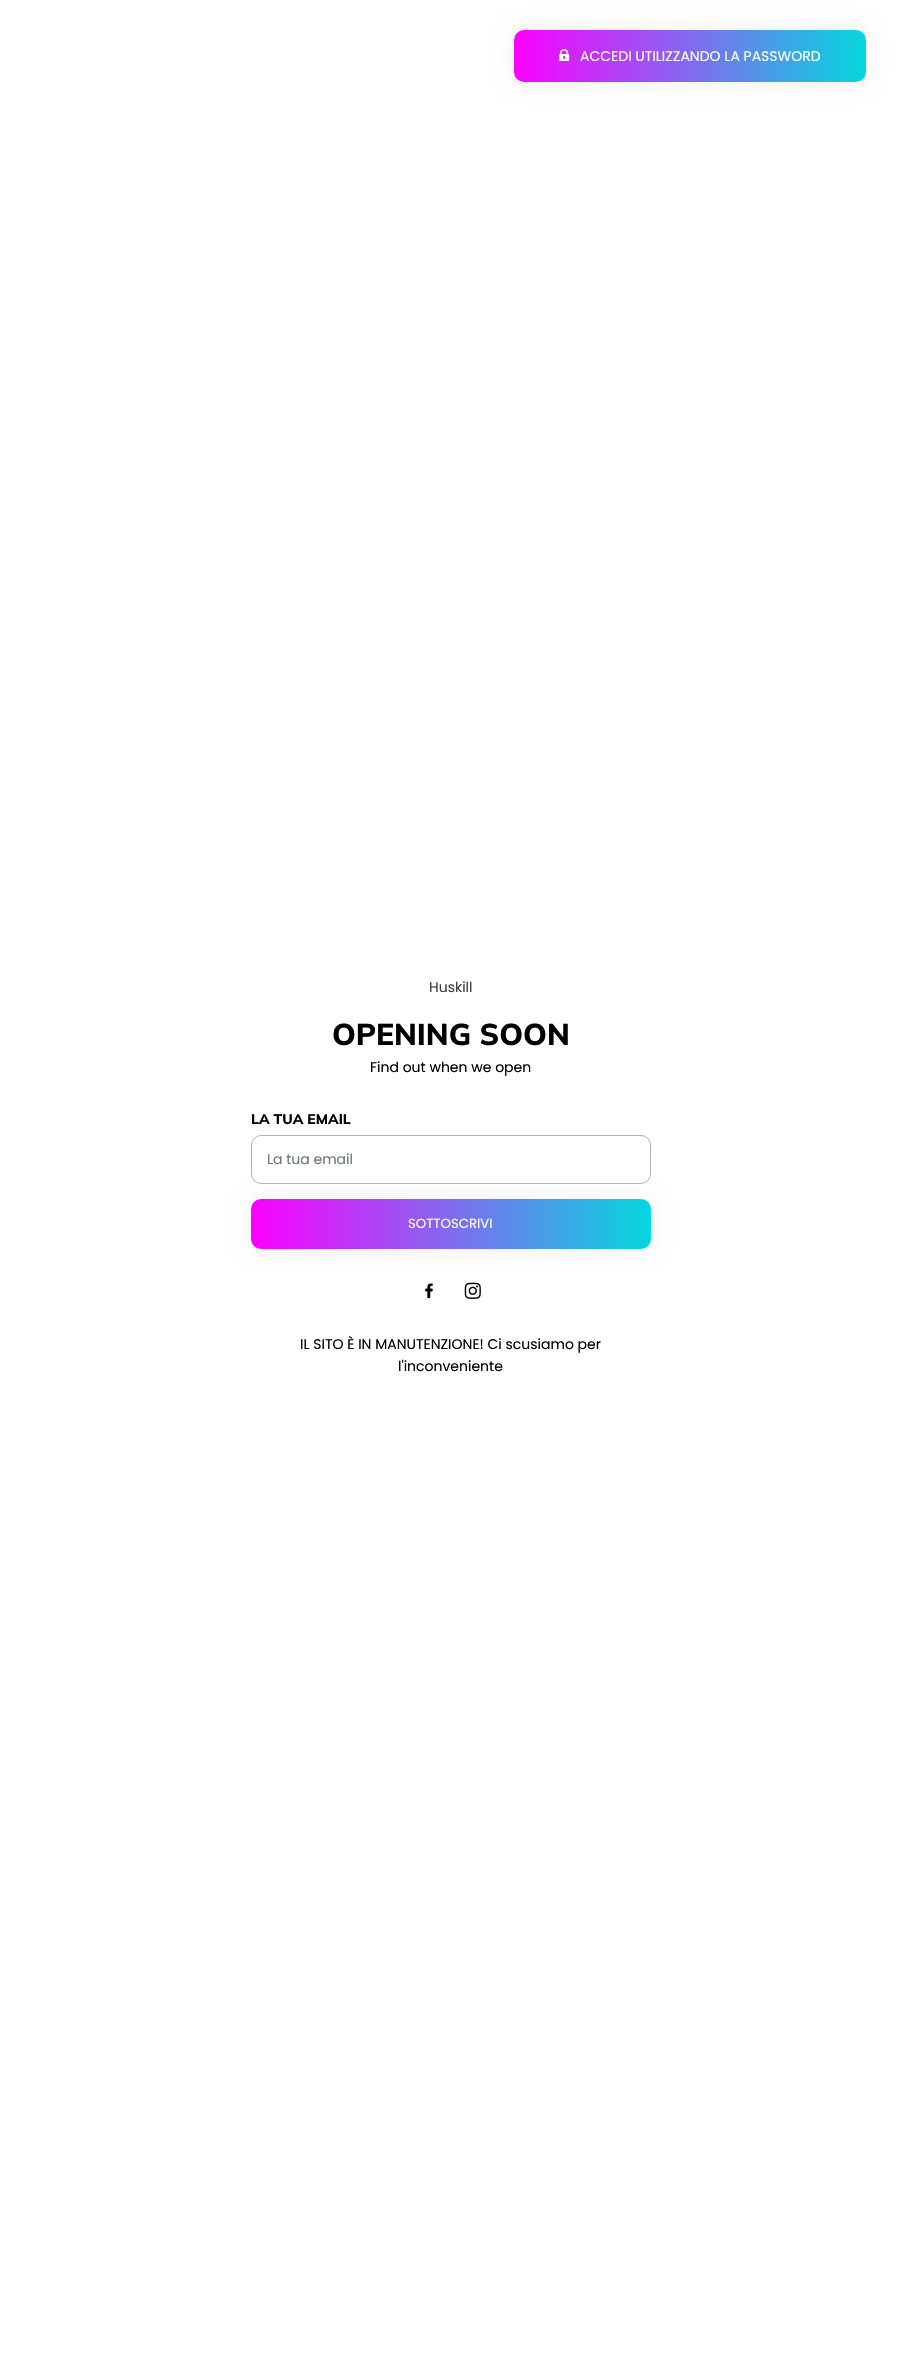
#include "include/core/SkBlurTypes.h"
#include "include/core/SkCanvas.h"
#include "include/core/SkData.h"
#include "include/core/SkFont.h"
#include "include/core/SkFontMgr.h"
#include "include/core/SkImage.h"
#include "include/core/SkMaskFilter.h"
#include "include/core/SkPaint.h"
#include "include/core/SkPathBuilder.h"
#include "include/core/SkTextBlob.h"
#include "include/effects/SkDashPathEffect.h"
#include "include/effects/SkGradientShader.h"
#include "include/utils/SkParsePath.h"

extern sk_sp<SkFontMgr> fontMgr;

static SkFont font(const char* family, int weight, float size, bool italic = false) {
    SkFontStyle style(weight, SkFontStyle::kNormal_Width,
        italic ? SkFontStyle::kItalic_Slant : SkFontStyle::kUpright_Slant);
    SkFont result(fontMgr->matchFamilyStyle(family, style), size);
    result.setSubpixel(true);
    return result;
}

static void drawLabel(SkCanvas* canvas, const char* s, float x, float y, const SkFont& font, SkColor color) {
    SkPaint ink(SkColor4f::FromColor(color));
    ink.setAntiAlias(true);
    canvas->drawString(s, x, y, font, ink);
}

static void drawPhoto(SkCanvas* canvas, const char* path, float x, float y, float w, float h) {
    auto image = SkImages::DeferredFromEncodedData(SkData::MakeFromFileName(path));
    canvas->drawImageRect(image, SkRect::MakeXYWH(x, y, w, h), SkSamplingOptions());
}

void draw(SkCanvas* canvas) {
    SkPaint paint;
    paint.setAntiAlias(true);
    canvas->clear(0xFFFFFFFF);
    paint.setColor(0xFFEEEEEE);
    paint.setMaskFilter(SkMaskFilter::MakeBlur(kNormal_SkBlurStyle, 10));
    canvas->drawRoundRect(SkRect::MakeXYWH(514, 30, 352, 52), 10, 10, paint);
    paint.setMaskFilter(nullptr);
    {
        const SkColor colors[] = {0xFFFC00FF, 0xFF00DBDE, 0xFFFC00FF};
        const float stops[] = {0, 0.51f, 1};
        const SkPoint ends[] = {{514, 56}, {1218, 56}};
        paint.setShader(SkGradientShader::MakeLinear(ends, colors, stops, 3, SkTileMode::kClamp));
        paint.setAlpha(255);
    }
    canvas->drawRoundRect(SkRect::MakeXYWH(514, 30, 352, 52), 10, 10, paint);
    drawPhoto(canvas, "assets/img1.png", 559, 49, 11, 12);
    SkFont font1 = font("Poppins", 400, 14);
    drawLabel(canvas, "ACCEDI UTILIZZANDO LA PASSWORD", 580, 61, font1, 0xFFFFFFFF);
    drawLabel(canvas, "Huskill", 429, 992, font1, 0xFF3D3D3D);
    SkFont font2 = font("Muli", 800, 30);
    drawLabel(canvas, "OPENING SOON", 332, 1045, font2, 0xFF000000);
    drawLabel(canvas, "Find out when we open", 370, 1072, font1, 0xFF000000);
    SkFont font3 = font("Muli", 800, 14);
    drawLabel(canvas, "LA TUA EMAIL", 251, 1124, font3, 0xFF000000);
    paint.setStroke(true);
    paint.setStrokeWidth(1);
    paint.setShader(nullptr);
    paint.setColor(0xFFB3B3B3);
    canvas->drawRoundRect(SkRect::MakeXYWH(251.5f, 1135.5f, 399, 48), 9.5f, 9.5f, paint);
    drawLabel(canvas, "La tua email", 267, 1164, font1, 0xFF6C757D);
    paint.setStroke(false);
    paint.setColor(0xFFEEEEEE);
    paint.setMaskFilter(SkMaskFilter::MakeBlur(kNormal_SkBlurStyle, 10));
    canvas->drawRoundRect(SkRect::MakeXYWH(251, 1199, 400, 50), 10, 10, paint);
    paint.setMaskFilter(nullptr);
    {
        const SkColor colors[] = {0xFFFC00FF, 0xFF00DBDE, 0xFFFC00FF};
        const float stops[] = {0, 0.51f, 1};
        const SkPoint ends[] = {{251, 1224}, {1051, 1224}};
        paint.setShader(SkGradientShader::MakeLinear(ends, colors, stops, 3, SkTileMode::kClamp));
        paint.setAlpha(255);
    }
    canvas->drawRoundRect(SkRect::MakeXYWH(251, 1199, 400, 50), 10, 10, paint);
    SkFont font4 = font("Poppins", 400, 13.25f);
    drawLabel(canvas, "SOTTOSCRIVI", 408, 1228, font4, 0xFFFFFFFF);
    drawPhoto(canvas, "assets/img2.png", 425, 1283, 8, 16);
    drawPhoto(canvas, "assets/img3.png", 464, 1282, 17, 17);
    drawLabel(canvas, "IL SITO È IN MANUTENZIONE! Ci scusiamo per", 300, 1349, font1, 0xFF000000);
    drawLabel(canvas, "l'inconveniente", 398, 1371, font1, 0xFF000000);
}
